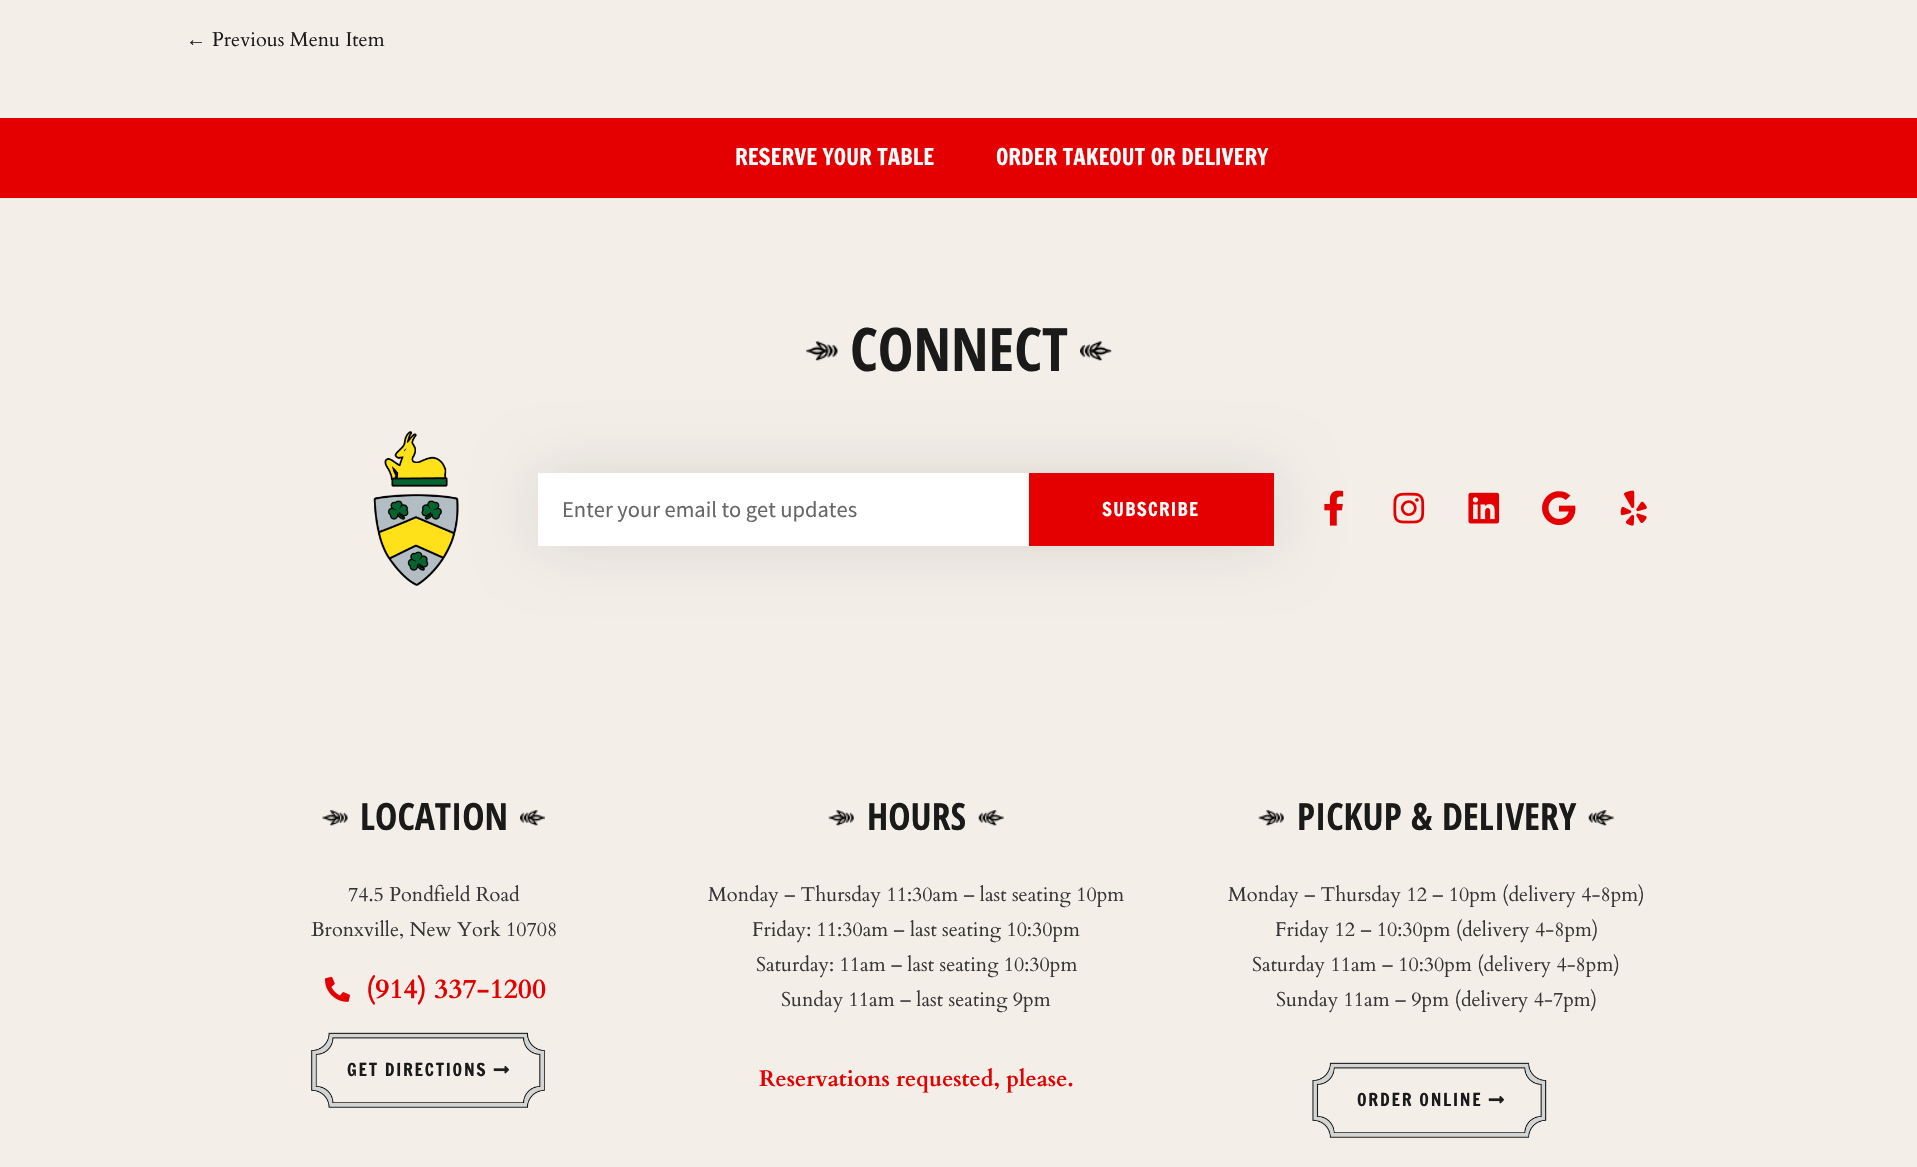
#include "include/core/SkBlurTypes.h"
#include "include/core/SkCanvas.h"
#include "include/core/SkData.h"
#include "include/core/SkFont.h"
#include "include/core/SkFontMgr.h"
#include "include/core/SkImage.h"
#include "include/core/SkMaskFilter.h"
#include "include/core/SkPaint.h"
#include "include/core/SkPathBuilder.h"
#include "include/core/SkTextBlob.h"
#include "include/effects/SkDashPathEffect.h"
#include "include/effects/SkGradientShader.h"
#include "include/utils/SkParsePath.h"

extern sk_sp<SkFontMgr> fontMgr;

static SkFont font(const char* family, int weight, float size, bool italic = false) {
    SkFontStyle style(weight, SkFontStyle::kNormal_Width,
        italic ? SkFontStyle::kItalic_Slant : SkFontStyle::kUpright_Slant);
    SkFont result(fontMgr->matchFamilyStyle(family, style), size);
    result.setSubpixel(true);
    return result;
}

static void drawLabel(SkCanvas* canvas, const char* s, float x, float y, const SkFont& font, SkColor color) {
    SkPaint ink(SkColor4f::FromColor(color));
    ink.setAntiAlias(true);
    canvas->drawString(s, x, y, font, ink);
}

static void drawTracked(SkCanvas* canvas, const char* s, float x, float y, const SkFont& font, const SkPaint& ink, float letter, float word) {
    std::vector<SkGlyphID> glyphs(font.countText(s, strlen(s), SkTextEncoding::kUTF8));
    std::vector<float> xs(glyphs.size());
    font.textToGlyphs(s, strlen(s), SkTextEncoding::kUTF8, glyphs);
    font.getXPos(glyphs, xs, x);
    float extra = 0;
    for (size_t i = 0; i < glyphs.size(); i++) {
        xs[i] += extra;
        extra += letter + word * (glyphs[i] == font.unicharToGlyph(' '));
    }
    canvas->drawTextBlob(SkTextBlob::MakeFromPosHGlyphs(glyphs, xs, y, font), 0, 0, ink);
}

static void fillRect(SkCanvas* canvas, float x, float y, float w, float h, SkColor color) {
    SkPaint ink(SkColor4f::FromColor(color));
    ink.setAntiAlias(true);
    canvas->drawRect(SkRect::MakeXYWH(x, y, w, h), ink);
}

static void drawPhoto(SkCanvas* canvas, const char* path, float x, float y, float w, float h) {
    auto image = SkImages::DeferredFromEncodedData(SkData::MakeFromFileName(path));
    canvas->drawImageRect(image, SkRect::MakeXYWH(x, y, w, h), SkSamplingOptions());
}

void draw(SkCanvas* canvas) {
    SkPaint paint;
    paint.setAntiAlias(true);
    canvas->clear(0xFFF3EEE8);
    SkFont font1 = font("Liberation Sans", 400, 20);
    drawLabel(canvas, "←", 186, 46, font1, 0xFF1A1A1A);
    SkFont font2 = font("Cardo", 400, 20);
    drawLabel(canvas, "Previous Menu Item", 212, 46, font2, 0xFF1A1A1A);
    fillRect(canvas, 0, 118, 1917, 80, 0xFFE40000);
    SkFont font3 = font("Francois One", 400, 22.5f);
    drawLabel(canvas, "RESERVE YOUR TABLE", 735, 165, font3, 0xFFFFFFFF);
    drawLabel(canvas, "ORDER TAKEOUT OR DELIVERY", 996, 165, font3, 0xFFFFFFFF);
    drawPhoto(canvas, "assets/img1.png", 806, 341, 32, 20);
    SkFont font4 = font("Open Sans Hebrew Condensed", 700, 60);
    drawLabel(canvas, "CONNECT", 850, 371, font4, 0xFF1A1A1A);
    drawPhoto(canvas, "assets/img2.png", 1080, 341, 32, 20);
    drawPhoto(canvas, "assets/img3.png", 373, 431, 86, 155);
    paint.setColor(0x1C000000);
    paint.setMaskFilter(SkMaskFilter::MakeBlur(kNormal_SkBlurStyle, 30));
    canvas->drawRect(SkRect::MakeXYWH(538, 473, 736, 73), paint);
    paint.setMaskFilter(nullptr);
    fillRect(canvas, 538, 473, 491, 73, 0xFFFFFFFF);
    SkFont font5 = font("Source Sans Pro", 400, 22.5f);
    drawLabel(canvas, "Enter your email to get updates", 562, 517, font5, 0xFF666666);
    fillRect(canvas, 1029, 473, 245, 73, 0xFFE40000);
    SkFont font6 = font("Francois One", 400, 18.75f);
    paint.setColor(0xFFFFFFFF);
    drawTracked(canvas, "SUBSCRIBE", 1102, 516, font6, paint, 1.25f, 0);
    drawPhoto(canvas, "assets/img4.png", 1324, 490, 20, 36);
    drawPhoto(canvas, "assets/img5.png", 1393, 492, 32, 32);
    drawPhoto(canvas, "assets/img6.png", 1468, 492, 32, 32);
    drawPhoto(canvas, "assets/img7.png", 1542, 491, 34, 35);
    drawPhoto(canvas, "assets/img8.png", 1620, 490, 27, 36);
    drawPhoto(canvas, "assets/img9.png", 322, 810, 26, 16);
    SkFont font7 = font("Open Sans Hebrew Condensed", 700, 37.5f);
    drawLabel(canvas, "LOCATION", 360, 830, font7, 0xFF1A1A1A);
    drawPhoto(canvas, "assets/img10.png", 520, 810, 25, 16);
    drawLabel(canvas, "74.5 Pondfield Road", 348, 901, font2, 0xFF353535);
    drawLabel(canvas, "Bronxville, New York 10708", 311, 936, font2, 0xFF353535);
    drawPhoto(canvas, "assets/img11.png", 325, 976, 25, 26);
    SkFont font8 = font("Cardo", 700, 27.5f);
    drawLabel(canvas, "(914) 337-1200", 366, 998, font8, 0xFFE40000);
    drawPhoto(canvas, "assets/img12.png", 311, 1032, 234, 76);
    SkFont font9 = font("Francois One", 400, 17.5f);
    paint.setColor(0xFF1A1A1A);
    drawTracked(canvas, "GET DIRECTIONS", 347, 1076, font9, paint, 1.75f, 0);
    drawPhoto(canvas, "assets/img13.png", 493, 1066, 16, 8);
    drawPhoto(canvas, "assets/img14.png", 828, 810, 26, 16);
    drawLabel(canvas, "HOURS", 867, 830, font7, 0xFF1A1A1A);
    drawPhoto(canvas, "assets/img15.png", 978, 810, 26, 16);
    drawLabel(canvas, "Monday – Thursday 11:30am – last seating 10pm", 708, 901, font2, 0xFF353535);
    drawLabel(canvas, "Friday: 11:30am – last seating 10:30pm", 752, 936, font2, 0xFF353535);
    drawLabel(canvas, "Saturday: 11am – last seating 10:30pm", 756, 971, font2, 0xFF353535);
    drawLabel(canvas, "Sunday 11am – last seating 9pm", 781, 1006, font2, 0xFF353535);
    SkFont font10 = font("Cardo", 700, 22.5f);
    drawLabel(canvas, "Reservations requested, please.", 759, 1086, font10, 0xFFE40000);
    drawPhoto(canvas, "assets/img16.png", 1258, 810, 26, 16);
    drawLabel(canvas, "PICKUP & DELIVERY", 1297, 830, font7, 0xFF1A1A1A);
    drawPhoto(canvas, "assets/img17.png", 1588, 810, 26, 16);
    drawLabel(canvas, "Monday – Thursday 12 – 10pm (delivery 4-8pm)", 1228, 901, font2, 0xFF353535);
    drawLabel(canvas, "Friday 12 – 10:30pm (delivery 4-8pm)", 1275, 936, font2, 0xFF353535);
    drawLabel(canvas, "Saturday 11am – 10:30pm (delivery 4-8pm)", 1252, 971, font2, 0xFF353535);
    drawLabel(canvas, "Sunday 11am – 9pm (delivery 4-7pm)", 1276, 1006, font2, 0xFF353535);
    drawPhoto(canvas, "assets/img18.png", 1312, 1062, 235, 76);
    drawTracked(canvas, "ORDER ONLINE", 1357, 1106, font9, paint, 1.75f, 0);
    drawPhoto(canvas, "assets/img13.png", 1488, 1096, 16, 8);
}
